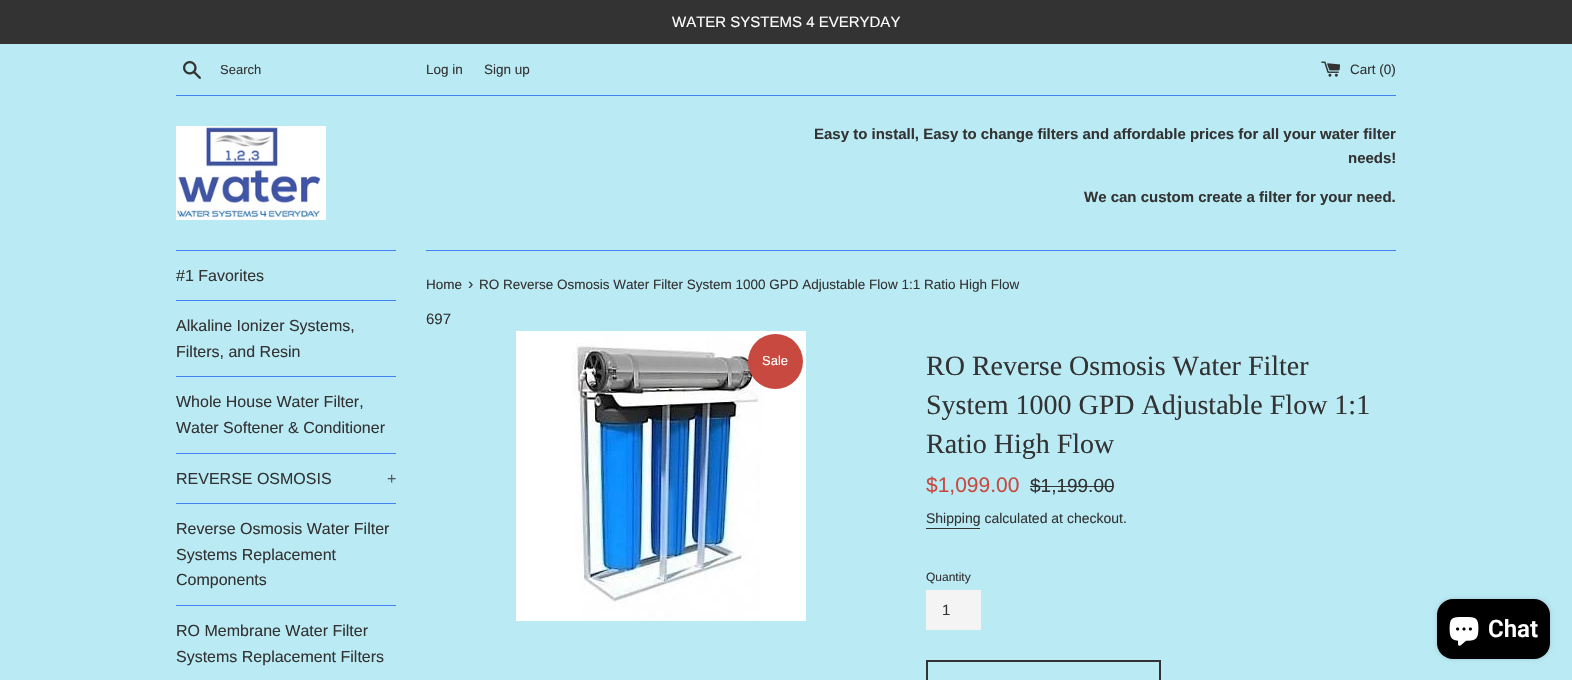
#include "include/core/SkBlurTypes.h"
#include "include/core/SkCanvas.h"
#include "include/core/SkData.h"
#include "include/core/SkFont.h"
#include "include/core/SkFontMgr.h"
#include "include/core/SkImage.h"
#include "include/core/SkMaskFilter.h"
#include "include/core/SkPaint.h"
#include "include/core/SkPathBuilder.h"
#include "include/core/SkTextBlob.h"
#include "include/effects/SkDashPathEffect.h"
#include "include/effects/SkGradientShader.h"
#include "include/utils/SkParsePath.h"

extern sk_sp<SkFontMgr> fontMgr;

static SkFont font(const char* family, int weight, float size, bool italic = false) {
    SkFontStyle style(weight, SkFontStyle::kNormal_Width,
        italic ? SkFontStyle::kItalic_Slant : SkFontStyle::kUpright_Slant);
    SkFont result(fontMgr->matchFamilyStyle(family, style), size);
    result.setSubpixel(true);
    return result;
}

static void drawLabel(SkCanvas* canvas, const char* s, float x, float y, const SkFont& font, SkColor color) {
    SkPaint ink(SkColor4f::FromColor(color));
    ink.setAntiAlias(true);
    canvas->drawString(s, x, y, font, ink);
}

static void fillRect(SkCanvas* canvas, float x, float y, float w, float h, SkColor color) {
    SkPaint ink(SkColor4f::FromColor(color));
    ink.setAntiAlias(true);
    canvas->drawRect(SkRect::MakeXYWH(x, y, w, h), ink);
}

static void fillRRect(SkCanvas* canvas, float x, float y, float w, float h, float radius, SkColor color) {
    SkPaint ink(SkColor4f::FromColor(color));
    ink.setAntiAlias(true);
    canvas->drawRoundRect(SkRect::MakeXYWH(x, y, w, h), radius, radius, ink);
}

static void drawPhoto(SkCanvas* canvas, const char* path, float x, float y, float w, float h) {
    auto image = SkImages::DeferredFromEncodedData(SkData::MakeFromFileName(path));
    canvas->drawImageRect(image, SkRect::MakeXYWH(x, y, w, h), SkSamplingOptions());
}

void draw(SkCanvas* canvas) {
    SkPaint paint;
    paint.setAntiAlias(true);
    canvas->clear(0xFFBAEBF5);
    fillRect(canvas, 0, 0, 1572, 44, 0xFF333333);
    SkFont font1 = font("Liberation Sans", 400, 15);
    drawLabel(canvas, "WATER SYSTEMS 4 EVERYDAY", 672, 27, font1, 0xFFFFFFFF);
    drawPhoto(canvas, "assets/img1.png", 183, 61, 18, 18);
    SkFont font2 = font("Liberation Sans", 400, 13);
    drawLabel(canvas, "Search", 220, 74, font2, 0xFF333333);
    SkFont font3 = font("Liberation Sans", 400, 13.5f);
    drawLabel(canvas, "Log in", 426, 74, font3, 0xFF333333);
    drawLabel(canvas, "Sign up", 484, 74, font3, 0xFF333333);
    drawPhoto(canvas, "assets/img2.png", 1321, 61, 20, 16);
    drawLabel(canvas, "Cart (0)", 1350, 74, font3, 0xFF333333);
    fillRect(canvas, 176, 95, 1220, 1, 0xFF4183F2);
    drawPhoto(canvas, "assets/img3.png", 176, 126, 150, 94);
    SkFont font4 = font("Liberation Sans", 700, 15);
    drawLabel(canvas, "Easy to install, Easy to change filters and affordable prices for all your water filter", 814, 139, font4, 0xFF333333);
    drawLabel(canvas, "needs!", 1348, 163, font4, 0xFF333333);
    drawLabel(canvas, "We can custom create a filter for your need.", 1084, 202, font4, 0xFF333333);
    fillRect(canvas, 176, 250, 220, 1, 0xFF4183F2);
    fillRect(canvas, 176, 300, 220, 1, 0xFF4183F2);
    SkFont font5 = font("Liberation Sans", 400, 16);
    drawLabel(canvas, "#1 Favorites", 176, 281, font5, 0xFF333333);
    fillRect(canvas, 176, 376, 220, 1, 0xFF4183F2);
    drawLabel(canvas, "Alkaline Ionizer Systems,", 176, 331, font5, 0xFF333333);
    drawLabel(canvas, "Filters, and Resin", 176, 357, font5, 0xFF333333);
    fillRect(canvas, 176, 453, 220, 1, 0xFF4183F2);
    drawLabel(canvas, "Whole House Water Filter,", 176, 407, font5, 0xFF333333);
    drawLabel(canvas, "Water Softener & Conditioner", 176, 433, font5, 0xFF333333);
    fillRect(canvas, 176, 503, 220, 1, 0xFF4183F2);
    drawLabel(canvas, "REVERSE OSMOSIS", 176, 484, font5, 0xFF333333);
    drawLabel(canvas, "+", 387, 484, font5, 0xFF4E585A);
    fillRect(canvas, 176, 605, 220, 1, 0xFF4183F2);
    drawLabel(canvas, "Reverse Osmosis Water Filter", 176, 534, font5, 0xFF333333);
    drawLabel(canvas, "Systems Replacement", 176, 560, font5, 0xFF333333);
    drawLabel(canvas, "Components", 176, 585, font5, 0xFF333333);
    drawLabel(canvas, "RO Membrane Water Filter", 176, 636, font5, 0xFF333333);
    drawLabel(canvas, "Systems Replacement Filters", 176, 662, font5, 0xFF333333);
    fillRect(canvas, 426, 250, 970, 1, 0xFF4183F2);
    drawLabel(canvas, "Home", 426, 289, font3, 0xFF333333);
    drawLabel(canvas, "›", 468, 289, font5, 0xFF333333);
    drawLabel(canvas, "RO Reverse Osmosis Water Filter System 1000 GPD Adjustable Flow 1:1 Ratio High Flow", 479, 289, font3, 0xFF333333);
    drawLabel(canvas, "697", 426, 324, font1, 0xFF333333);
    drawPhoto(canvas, "assets/img4.png", 516, 331, 290, 290);
    paint.setColor(0xFFC8493F);
    canvas->drawCircle(775.5f, 361.5f, 27.5f, paint);
    drawLabel(canvas, "Sale", 762, 365, font2, 0xFFFFFFFF);
    SkFont font6 = font("Liberation Serif", 400, 28);
    drawLabel(canvas, "RO Reverse Osmosis Water Filter", 926, 375, font6, 0xFF333333);
    drawLabel(canvas, "System 1000 GPD Adjustable Flow 1:1", 926, 414, font6, 0xFF333333);
    drawLabel(canvas, "Ratio High Flow", 926, 453, font6, 0xFF333333);
    SkFont font7 = font("Liberation Sans", 400, 21);
    drawLabel(canvas, "$1,099.00", 926, 492, font7, 0xFFC8493F);
    SkFont font8 = font("Liberation Sans", 400, 19);
    drawLabel(canvas, "$1,199.00", 1030, 492, font8, 0xFF333333);
    fillRect(canvas, 1030, 486, 84, 1, 0xFF333333);
    SkFont font9 = font("Liberation Sans", 400, 14);
    drawLabel(canvas, "Shipping calculated at checkout.", 926, 523, font9, 0xFF333333);
    fillRect(canvas, 926, 528, 54, 1, 0xFF333333);
    SkFont font10 = font("Liberation Sans", 400, 12);
    drawLabel(canvas, "Quantity", 926, 581, font10, 0xFF333333);
    fillRect(canvas, 926, 590, 55, 40, 0xFFF4F4F4);
    drawLabel(canvas, "1", 942, 615, font1, 0xFF333333);
    paint.setStroke(true);
    paint.setStrokeWidth(2);
    paint.setColor(0xFF333333);
    canvas->drawRect(SkRect::MakeXYWH(927, 661, 233, 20), paint);
    paint.setStroke(false);
    paint.setColor(0x26000000);
    paint.setMaskFilter(SkMaskFilter::MakeBlur(kNormal_SkBlurStyle, 2.5f));
    canvas->drawRoundRect(SkRect::MakeXYWH(1437, 599, 113, 60), 16, 16, paint);
    paint.setMaskFilter(nullptr);
    fillRRect(canvas, 1437, 599, 113, 60, 16, 0xFF000000);
    drawPhoto(canvas, "assets/img5.png", 1449, 617, 30, 29);
    SkFont font11 = font("Roboto", 600, 24);
    drawLabel(canvas, "Chat", 1488, 637, font11, 0xFFFFFFFF);
}
